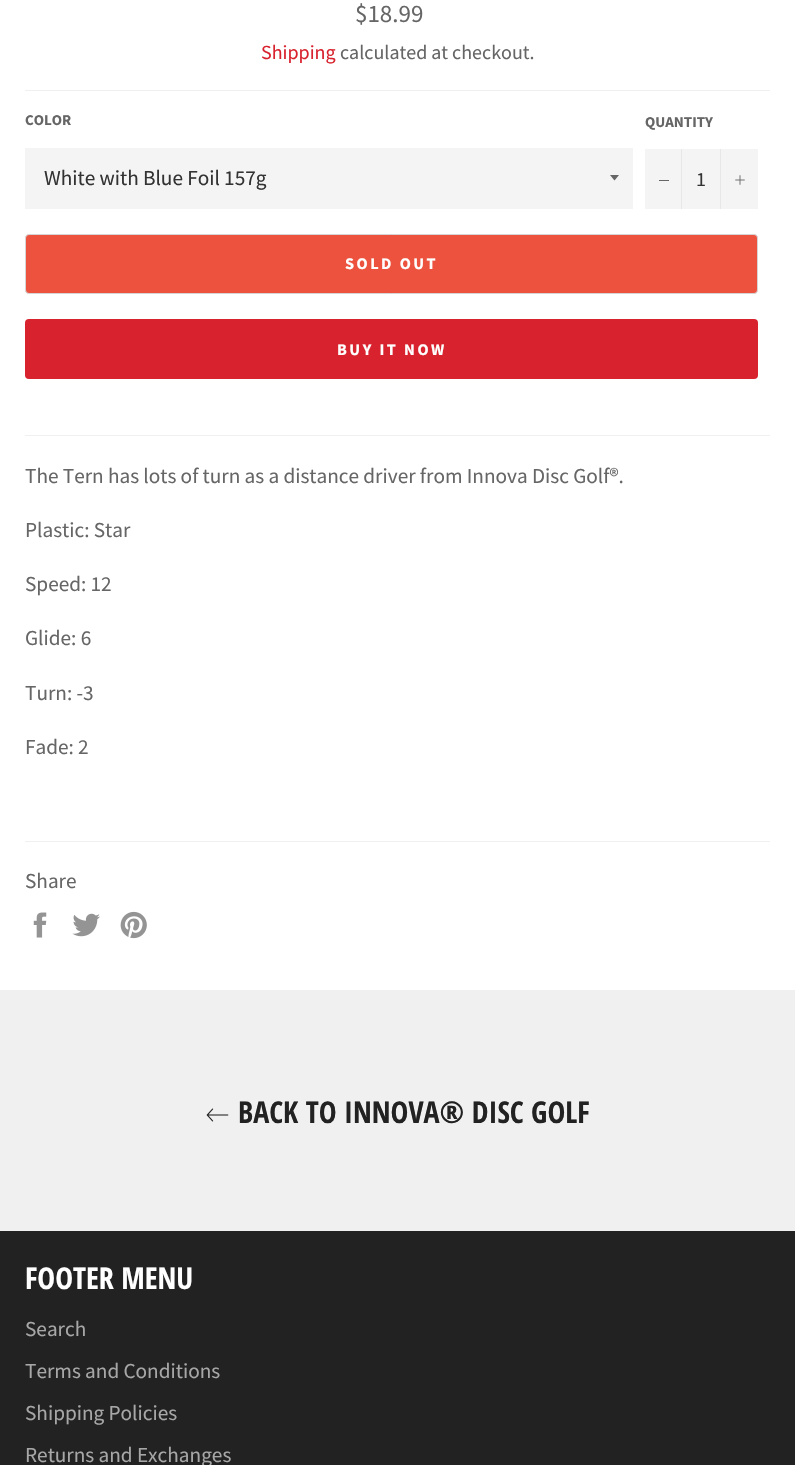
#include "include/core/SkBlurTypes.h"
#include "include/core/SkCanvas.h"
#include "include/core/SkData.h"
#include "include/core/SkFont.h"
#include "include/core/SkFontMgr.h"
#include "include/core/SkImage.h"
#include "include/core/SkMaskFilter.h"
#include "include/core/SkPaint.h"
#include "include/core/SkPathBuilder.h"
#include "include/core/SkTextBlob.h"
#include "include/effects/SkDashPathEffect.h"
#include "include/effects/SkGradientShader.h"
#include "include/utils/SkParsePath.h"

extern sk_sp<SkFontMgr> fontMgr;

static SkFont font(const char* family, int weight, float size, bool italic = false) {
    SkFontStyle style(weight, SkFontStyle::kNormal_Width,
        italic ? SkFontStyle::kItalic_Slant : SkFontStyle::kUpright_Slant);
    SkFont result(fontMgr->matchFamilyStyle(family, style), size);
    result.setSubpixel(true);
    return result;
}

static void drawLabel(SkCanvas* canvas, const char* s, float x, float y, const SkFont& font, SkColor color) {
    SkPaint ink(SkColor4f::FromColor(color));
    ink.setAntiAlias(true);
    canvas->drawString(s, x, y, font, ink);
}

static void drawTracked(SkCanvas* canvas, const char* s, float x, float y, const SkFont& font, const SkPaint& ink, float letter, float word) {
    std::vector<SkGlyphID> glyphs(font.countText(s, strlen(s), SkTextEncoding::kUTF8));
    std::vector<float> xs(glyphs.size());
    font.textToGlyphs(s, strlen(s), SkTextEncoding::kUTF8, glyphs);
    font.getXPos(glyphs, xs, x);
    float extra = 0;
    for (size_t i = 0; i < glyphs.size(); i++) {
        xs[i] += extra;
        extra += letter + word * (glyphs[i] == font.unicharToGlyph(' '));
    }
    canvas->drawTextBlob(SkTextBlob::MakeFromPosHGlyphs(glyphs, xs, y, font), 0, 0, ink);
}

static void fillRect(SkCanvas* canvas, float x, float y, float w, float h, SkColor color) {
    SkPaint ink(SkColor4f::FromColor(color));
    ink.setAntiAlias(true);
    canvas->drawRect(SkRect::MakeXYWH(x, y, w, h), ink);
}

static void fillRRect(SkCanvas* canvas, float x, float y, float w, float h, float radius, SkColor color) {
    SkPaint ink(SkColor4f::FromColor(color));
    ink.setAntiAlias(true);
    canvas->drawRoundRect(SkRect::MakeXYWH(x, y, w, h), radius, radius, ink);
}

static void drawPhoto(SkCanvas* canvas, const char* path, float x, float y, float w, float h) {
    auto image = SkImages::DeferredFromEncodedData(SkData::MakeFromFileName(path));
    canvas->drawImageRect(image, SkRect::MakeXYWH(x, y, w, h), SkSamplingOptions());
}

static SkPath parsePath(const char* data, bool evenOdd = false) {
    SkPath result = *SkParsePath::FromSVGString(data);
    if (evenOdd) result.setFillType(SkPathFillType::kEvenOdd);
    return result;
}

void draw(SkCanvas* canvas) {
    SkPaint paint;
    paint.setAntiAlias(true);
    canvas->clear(0xFFFFFFFF);
    SkFont font1 = font("Source Sans Pro", 400, 25);
    drawLabel(canvas, "$18.99", 355, 22, font1, 0xFF666666);
    SkFont font2 = font("Source Sans Pro", 400, 20);
    drawLabel(canvas, "Shipping", 261, 59, font2, 0xFFD8232F);
    drawLabel(canvas, "calculated at checkout.", 340, 59, font2, 0xFF666666);
    fillRect(canvas, 25, 90, 745, 1, 0xFFF0F0F0);
    SkFont font3 = font("Source Sans Pro", 700, 15);
    drawLabel(canvas, "COLOR", 25, 125, font3, 0xFF666666);
    fillRect(canvas, 25, 148, 608, 61, 0xFFF4F4F4);
    paint.setColor(0xFF666666);
    canvas->drawPath(parsePath("M610 175L614.5 180.5L619 175Z"), paint);
    SkFont font4 = font("Source Sans Pro", 400, 21.25f);
    drawLabel(canvas, "White with Blue Foil 157g", 44, 185, font4, 0xFF333333);
    drawLabel(canvas, "QUANTITY", 645, 127, font3, 0xFF666666);
    fillRect(canvas, 645, 149, 113, 60, 0xFFF4F4F4);
    fillRect(canvas, 681, 149, 1, 60, 0xFFE7E7E7);
    fillRect(canvas, 659, 180, 10, 1, 0xFF666666);
    drawLabel(canvas, "1", 696, 186, font2, 0xFF333333);
    fillRect(canvas, 720, 149, 1, 60, 0xFFE7E7E7);
    drawPhoto(canvas, "assets/img1.png", 735, 175, 10, 10);
    paint.setColor(0xFFEC523E);
    canvas->drawRoundRect(SkRect::MakeXYWH(25.5f, 234.5f, 732, 59), 3.5f, 3.5f, paint);
    paint.setStroke(true);
    paint.setStrokeWidth(1);
    paint.setColor(0xFFD5D5D5);
    canvas->drawRoundRect(SkRect::MakeXYWH(25.5f, 234.5f, 732, 59), 3.5f, 3.5f, paint);
    SkFont font5 = font("Source Sans Pro", 700, 16.25f);
    paint.setStroke(false);
    paint.setColor(0xFFFFFFFF);
    drawTracked(canvas, "SOLD OUT", 345, 269, font5, paint, 2.5f, 0);
    fillRRect(canvas, 25, 319, 733, 60, 4, 0xFFD8232F);
    drawTracked(canvas, "BUY IT NOW", 337, 355, font5, paint, 2.5f, 0);
    fillRect(canvas, 25, 435, 745, 1, 0xFFF0F0F0);
    drawLabel(canvas, "The Tern has lots of turn as a distance driver from Innova Disc Golf®.", 25, 483, font4, 0xFF666666);
    drawLabel(canvas, "Plastic: Star", 25, 537, font4, 0xFF666666);
    drawLabel(canvas, "Speed: 12", 25, 591, font4, 0xFF666666);
    drawLabel(canvas, "Glide: 6", 25, 645, font4, 0xFF666666);
    drawLabel(canvas, "Turn: -3", 25, 700, font4, 0xFF666666);
    drawLabel(canvas, "Fade: 2", 25, 754, font4, 0xFF666666);
    fillRect(canvas, 25, 841, 745, 1, 0xFFF0F0F0);
    drawLabel(canvas, "Share", 25, 888, font4, 0xFF666666);
    drawPhoto(canvas, "assets/img2.png", 33, 912, 14, 26);
    drawPhoto(canvas, "assets/img3.png", 72, 913, 28, 24);
    drawPhoto(canvas, "assets/img4.png", 120, 911, 27, 28);
    fillRect(canvas, 0, 990, 795, 241, 0xFFF0F0F0);
    drawPhoto(canvas, "assets/img5.png", 206, 1108, 23, 14);
    SkFont font6 = font("Open Sans Condensed", 700, 30);
    drawLabel(canvas, "BACK TO INNOVA® DISC GOLF", 238, 1123, font6, 0xFF222222);
    fillRect(canvas, 0, 1231, 795, 234, 0xFF222222);
    drawLabel(canvas, "FOOTER MENU", 25, 1289, font6, 0xFFFFFFFF);
    drawLabel(canvas, "Search", 25, 1336, font4, 0xFFA7A7A7);
    drawLabel(canvas, "Terms and Conditions", 25, 1378, font4, 0xFFA7A7A7);
    drawLabel(canvas, "Shipping Policies", 25, 1420, font4, 0xFFA7A7A7);
    drawLabel(canvas, "Returns and Exchanges", 25, 1462, font4, 0xFFA7A7A7);
}
